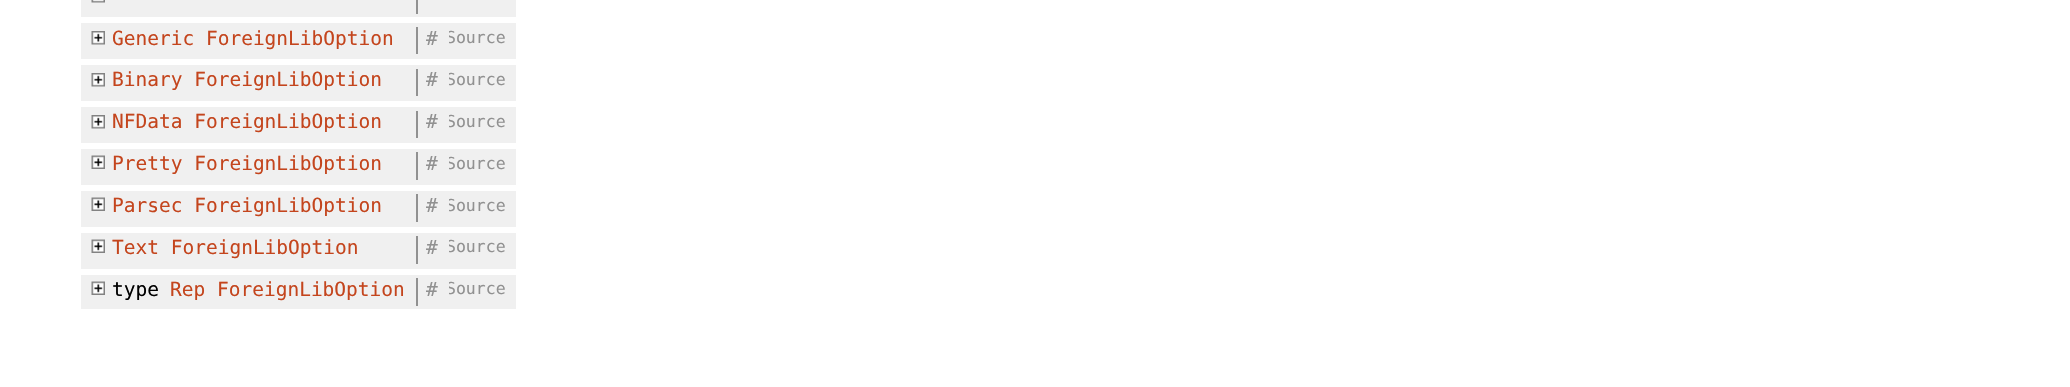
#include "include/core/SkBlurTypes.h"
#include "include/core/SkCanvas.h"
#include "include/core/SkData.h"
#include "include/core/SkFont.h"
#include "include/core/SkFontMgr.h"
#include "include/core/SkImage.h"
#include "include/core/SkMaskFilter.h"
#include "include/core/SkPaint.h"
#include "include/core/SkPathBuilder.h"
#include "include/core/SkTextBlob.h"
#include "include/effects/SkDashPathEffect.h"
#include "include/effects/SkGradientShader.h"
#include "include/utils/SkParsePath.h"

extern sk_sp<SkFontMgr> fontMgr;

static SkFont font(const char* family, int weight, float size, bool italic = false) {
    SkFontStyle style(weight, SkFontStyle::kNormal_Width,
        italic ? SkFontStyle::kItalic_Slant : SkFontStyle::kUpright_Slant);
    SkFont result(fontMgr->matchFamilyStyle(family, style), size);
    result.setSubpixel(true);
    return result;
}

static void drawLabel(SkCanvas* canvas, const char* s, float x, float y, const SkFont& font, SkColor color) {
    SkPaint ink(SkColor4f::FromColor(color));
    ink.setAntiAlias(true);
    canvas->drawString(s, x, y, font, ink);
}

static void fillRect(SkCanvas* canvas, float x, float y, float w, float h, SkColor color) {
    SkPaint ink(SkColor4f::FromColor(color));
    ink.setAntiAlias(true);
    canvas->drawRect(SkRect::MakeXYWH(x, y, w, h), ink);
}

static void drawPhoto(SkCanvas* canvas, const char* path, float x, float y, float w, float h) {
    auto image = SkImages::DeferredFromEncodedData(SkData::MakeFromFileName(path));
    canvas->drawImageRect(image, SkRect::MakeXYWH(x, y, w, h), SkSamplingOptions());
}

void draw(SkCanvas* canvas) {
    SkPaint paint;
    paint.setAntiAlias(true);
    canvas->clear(0xFFFFFFFF);
    fillRect(canvas, 81, 0, 435, 17, 0xFFF0F0F0);
    drawPhoto(canvas, "assets/img1.png", 91, 0, 14, 3);
    fillRect(canvas, 416, 0, 2, 14, 0xFF919191);
    fillRect(canvas, 81, 23, 435, 36, 0xFFF0F0F0);
    drawPhoto(canvas, "assets/img2.png", 91, 31, 14, 14);
    SkFont font1 = font("DejaVu Sans Mono", 400, 19.5f);
    drawLabel(canvas, "Generic ForeignLibOption", 112, 45, font1, 0xFFC4451D);
    SkFont font2 = font("DejaVu Sans Mono", 400, 16.5f);
    drawLabel(canvas, "Source", 446, 43, font2, 0xFF919191);
    fillRect(canvas, 447, 31, 2, 12, 0xFFF0F0F0);
    fillRect(canvas, 416, 27, 2, 27, 0xFF919191);
    drawLabel(canvas, "#", 426, 45, font1, 0xFF919191);
    fillRect(canvas, 81, 65, 435, 36, 0xFFF0F0F0);
    drawPhoto(canvas, "assets/img2.png", 91, 73, 14, 14);
    drawLabel(canvas, "Binary ForeignLibOption", 112, 86, font1, 0xFFC4451D);
    drawLabel(canvas, "Source", 446, 85, font2, 0xFF919191);
    fillRect(canvas, 447, 73, 2, 12, 0xFFF0F0F0);
    fillRect(canvas, 416, 69, 2, 27, 0xFF919191);
    drawLabel(canvas, "#", 426, 86, font1, 0xFF919191);
    fillRect(canvas, 81, 107, 435, 36, 0xFFF0F0F0);
    drawPhoto(canvas, "assets/img2.png", 91, 115, 14, 14);
    drawLabel(canvas, "NFData ForeignLibOption", 112, 128, font1, 0xFFC4451D);
    drawLabel(canvas, "Source", 446, 127, font2, 0xFF919191);
    fillRect(canvas, 447, 115, 2, 12, 0xFFF0F0F0);
    fillRect(canvas, 416, 111, 2, 27, 0xFF919191);
    drawLabel(canvas, "#", 426, 128, font1, 0xFF919191);
    fillRect(canvas, 81, 149, 435, 36, 0xFFF0F0F0);
    drawPhoto(canvas, "assets/img3.png", 91, 155, 14, 14);
    drawLabel(canvas, "Pretty ForeignLibOption", 112, 170, font1, 0xFFC4451D);
    drawLabel(canvas, "Source", 446, 169, font2, 0xFF919191);
    fillRect(canvas, 447, 157, 2, 12, 0xFFF0F0F0);
    fillRect(canvas, 416, 152, 2, 28, 0xFF919191);
    drawLabel(canvas, "#", 426, 170, font1, 0xFF919191);
    fillRect(canvas, 81, 191, 435, 36, 0xFFF0F0F0);
    drawPhoto(canvas, "assets/img3.png", 91, 197, 14, 14);
    drawLabel(canvas, "Parsec ForeignLibOption", 112, 212, font1, 0xFFC4451D);
    drawLabel(canvas, "Source", 446, 211, font2, 0xFF919191);
    fillRect(canvas, 447, 199, 2, 12, 0xFFF0F0F0);
    fillRect(canvas, 416, 194, 2, 28, 0xFF919191);
    drawLabel(canvas, "#", 426, 212, font1, 0xFF919191);
    fillRect(canvas, 81, 233, 435, 36, 0xFFF0F0F0);
    drawPhoto(canvas, "assets/img3.png", 91, 239, 14, 14);
    drawLabel(canvas, "Text ForeignLibOption", 112, 254, font1, 0xFFC4451D);
    drawLabel(canvas, "Source", 446, 252, font2, 0xFF919191);
    fillRect(canvas, 447, 240, 2, 12, 0xFFF0F0F0);
    fillRect(canvas, 416, 236, 2, 28, 0xFF919191);
    drawLabel(canvas, "#", 426, 254, font1, 0xFF919191);
    fillRect(canvas, 81, 275, 435, 34, 0xFFF0F0F0);
    drawPhoto(canvas, "assets/img3.png", 91, 281, 14, 14);
    drawLabel(canvas, "type", 112, 296, font1, 0xFF000000);
    drawLabel(canvas, "Rep ForeignLibOption", 170, 296, font1, 0xFFC4451D);
    drawLabel(canvas, "Source", 446, 294, font2, 0xFF919191);
    fillRect(canvas, 447, 282, 2, 12, 0xFFF0F0F0);
    fillRect(canvas, 416, 278, 2, 28, 0xFF919191);
    drawLabel(canvas, "#", 426, 296, font1, 0xFF919191);
}
